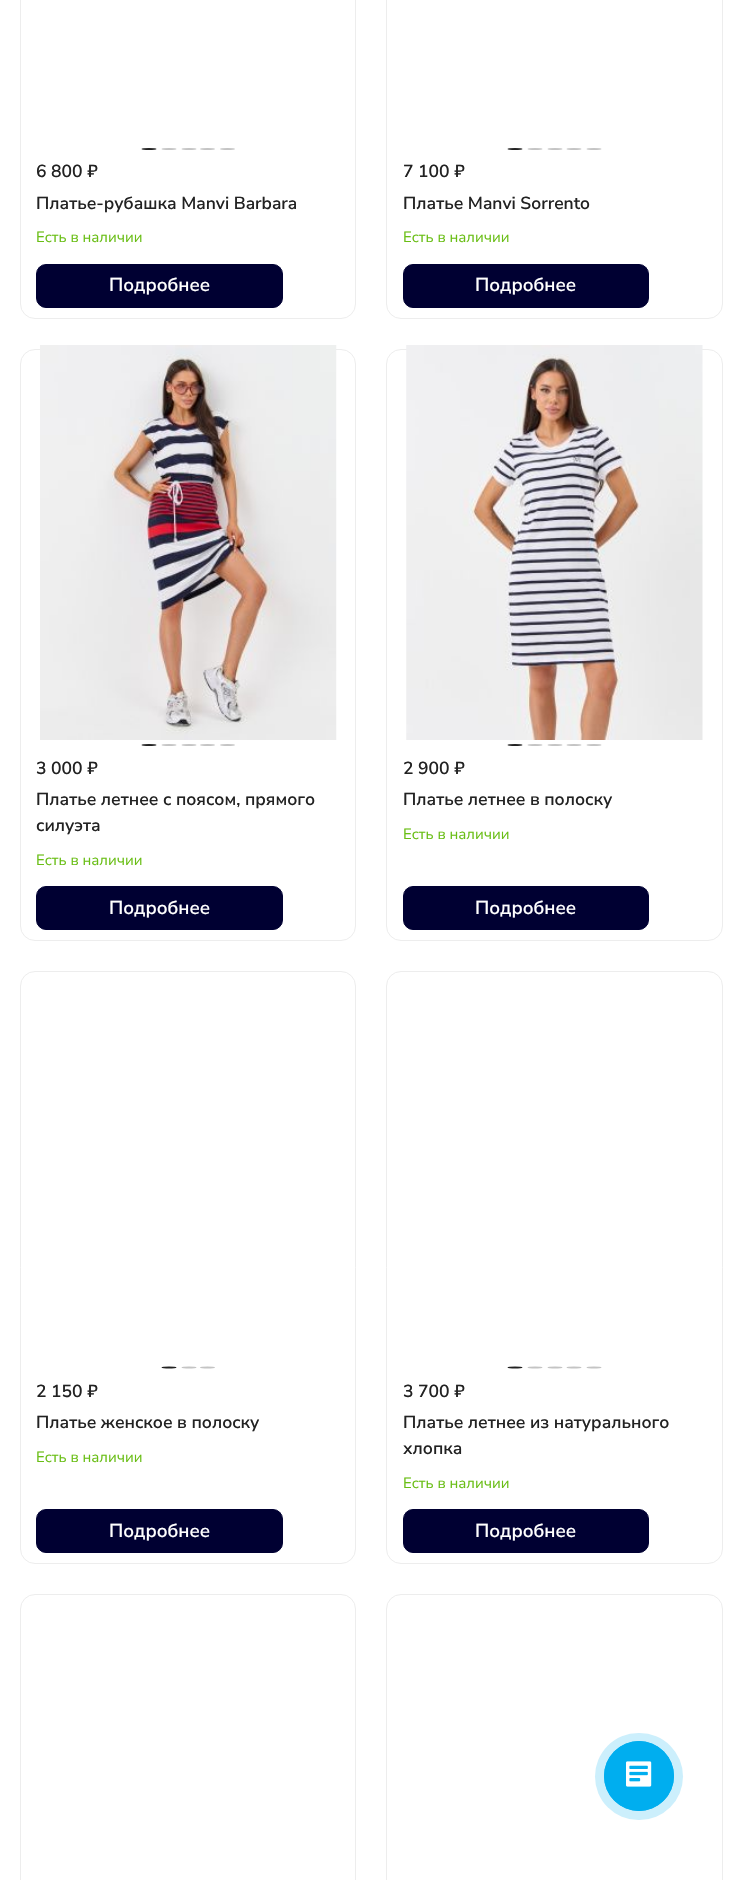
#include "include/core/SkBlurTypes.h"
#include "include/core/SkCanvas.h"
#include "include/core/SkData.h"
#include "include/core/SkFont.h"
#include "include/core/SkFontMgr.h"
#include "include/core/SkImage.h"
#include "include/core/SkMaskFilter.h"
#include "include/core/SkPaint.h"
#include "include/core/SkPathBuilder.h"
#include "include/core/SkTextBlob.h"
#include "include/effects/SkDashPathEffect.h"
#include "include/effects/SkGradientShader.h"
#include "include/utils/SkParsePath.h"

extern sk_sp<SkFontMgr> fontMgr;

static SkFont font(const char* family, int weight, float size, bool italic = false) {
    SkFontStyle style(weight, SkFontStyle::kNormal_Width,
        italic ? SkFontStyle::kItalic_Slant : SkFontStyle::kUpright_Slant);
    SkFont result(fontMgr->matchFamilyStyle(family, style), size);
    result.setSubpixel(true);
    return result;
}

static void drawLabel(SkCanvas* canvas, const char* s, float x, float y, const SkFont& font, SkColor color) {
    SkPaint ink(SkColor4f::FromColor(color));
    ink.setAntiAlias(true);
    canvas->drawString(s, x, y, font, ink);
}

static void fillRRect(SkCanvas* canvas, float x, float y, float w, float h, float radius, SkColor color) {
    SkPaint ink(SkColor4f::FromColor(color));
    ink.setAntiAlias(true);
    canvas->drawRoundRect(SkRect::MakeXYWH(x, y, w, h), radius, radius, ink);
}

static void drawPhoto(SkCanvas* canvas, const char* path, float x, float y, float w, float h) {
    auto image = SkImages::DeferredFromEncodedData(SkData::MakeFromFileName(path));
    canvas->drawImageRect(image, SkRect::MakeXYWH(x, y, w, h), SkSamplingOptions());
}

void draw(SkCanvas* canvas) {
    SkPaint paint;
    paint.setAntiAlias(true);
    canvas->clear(0xFFFFFFFF);
    paint.setStroke(true);
    paint.setStrokeWidth(1);
    paint.setColor(0xFFEDEDED);
    canvas->drawRoundRect(SkRect::MakeXYWH(20.5f, -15.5f, 335, 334), 14.5f, 14.5f, paint);
    paint.setStroke(false);
    paint.setColor(0xFF222222);
    canvas->drawOval(SkRect::MakeXYWH(141.5f, 148, 15, 2), paint);
    paint.setColor(0xFFC4C4C4);
    canvas->drawOval(SkRect::MakeXYWH(161.5f, 148, 15, 2), paint);
    canvas->drawOval(SkRect::MakeXYWH(181.5f, 148, 15, 2), paint);
    canvas->drawOval(SkRect::MakeXYWH(200, 148, 15, 2), paint);
    canvas->drawOval(SkRect::MakeXYWH(220, 148, 15, 2), paint);
    SkFont font1 = font("Nunito Sans", 600, 17.5f);
    drawLabel(canvas, "6 800 ₽", 36, 177, font1, 0xFF222222);
    drawLabel(canvas, "Платье-рубашка Manvi Barbara", 36, 209, font1, 0xFF222222);
    SkFont font2 = font("Nunito Sans", 400, 15);
    drawLabel(canvas, "Есть в наличии", 36, 242, font2, 0xFF69BE15);
    paint.setColor(0xFF000032);
    canvas->drawRoundRect(SkRect::MakeXYWH(36.5f, 264.5f, 246, 43), 9.5f, 9.5f, paint);
    paint.setStroke(true);
    canvas->drawRoundRect(SkRect::MakeXYWH(36.5f, 264.5f, 246, 43), 9.5f, 9.5f, paint);
    SkFont font3 = font("Nunito Sans", 600, 18.75f);
    drawLabel(canvas, "Подробнее", 109, 291, font3, 0xFFFFFFFF);
    paint.setColor(0xFFEDEDED);
    canvas->drawRoundRect(SkRect::MakeXYWH(386.5f, -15.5f, 336, 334), 14.5f, 14.5f, paint);
    paint.setStroke(false);
    paint.setColor(0xFF222222);
    canvas->drawOval(SkRect::MakeXYWH(507.5f, 148, 15, 2), paint);
    paint.setColor(0xFFC4C4C4);
    canvas->drawOval(SkRect::MakeXYWH(527.5f, 148, 15, 2), paint);
    canvas->drawOval(SkRect::MakeXYWH(547.5f, 148, 15, 2), paint);
    canvas->drawOval(SkRect::MakeXYWH(566.5f, 148, 15, 2), paint);
    canvas->drawOval(SkRect::MakeXYWH(586.5f, 148, 15, 2), paint);
    drawLabel(canvas, "7 100 ₽", 403, 177, font1, 0xFF222222);
    drawLabel(canvas, "Платье Manvi Sorrento", 403, 209, font1, 0xFF222222);
    drawLabel(canvas, "Есть в наличии", 403, 242, font2, 0xFF69BE15);
    paint.setColor(0xFF000032);
    canvas->drawRoundRect(SkRect::MakeXYWH(403.5f, 264.5f, 245, 43), 9.5f, 9.5f, paint);
    paint.setStroke(true);
    canvas->drawRoundRect(SkRect::MakeXYWH(403.5f, 264.5f, 245, 43), 9.5f, 9.5f, paint);
    drawLabel(canvas, "Подробнее", 475, 291, font3, 0xFFFFFFFF);
    paint.setColor(0xFFEDEDED);
    canvas->drawRoundRect(SkRect::MakeXYWH(20.5f, 349.5f, 335, 591), 14.5f, 14.5f, paint);
    drawPhoto(canvas, "assets/img1.png", 40, 345, 297, 395);
    paint.setStroke(false);
    paint.setColor(0xFF222222);
    canvas->drawOval(SkRect::MakeXYWH(141.5f, 744, 15, 2), paint);
    paint.setColor(0xFFC4C4C4);
    canvas->drawOval(SkRect::MakeXYWH(161.5f, 744, 15, 2), paint);
    canvas->drawOval(SkRect::MakeXYWH(181.5f, 744, 15, 2), paint);
    canvas->drawOval(SkRect::MakeXYWH(200, 744, 15, 2), paint);
    canvas->drawOval(SkRect::MakeXYWH(220, 744, 15, 2), paint);
    drawLabel(canvas, "3 000 ₽", 36, 774, font1, 0xFF222222);
    drawLabel(canvas, "Платье летнее с поясом, прямого", 36, 805, font1, 0xFF222222);
    drawLabel(canvas, "силуэта", 36, 831, font1, 0xFF222222);
    drawLabel(canvas, "Есть в наличии", 36, 865, font2, 0xFF69BE15);
    paint.setColor(0xFF000032);
    canvas->drawRoundRect(SkRect::MakeXYWH(36.5f, 886.5f, 246, 43), 9.5f, 9.5f, paint);
    paint.setStroke(true);
    canvas->drawRoundRect(SkRect::MakeXYWH(36.5f, 886.5f, 246, 43), 9.5f, 9.5f, paint);
    drawLabel(canvas, "Подробнее", 109, 914, font3, 0xFFFFFFFF);
    paint.setColor(0xFFEDEDED);
    canvas->drawRoundRect(SkRect::MakeXYWH(386.5f, 349.5f, 336, 591), 14.5f, 14.5f, paint);
    drawPhoto(canvas, "assets/img2.png", 406, 345, 297, 395);
    paint.setStroke(false);
    paint.setColor(0xFF222222);
    canvas->drawOval(SkRect::MakeXYWH(507.5f, 744, 15, 2), paint);
    paint.setColor(0xFFC4C4C4);
    canvas->drawOval(SkRect::MakeXYWH(527.5f, 744, 15, 2), paint);
    canvas->drawOval(SkRect::MakeXYWH(547.5f, 744, 15, 2), paint);
    canvas->drawOval(SkRect::MakeXYWH(566.5f, 744, 15, 2), paint);
    canvas->drawOval(SkRect::MakeXYWH(586.5f, 744, 15, 2), paint);
    drawLabel(canvas, "2 900 ₽", 403, 774, font1, 0xFF222222);
    drawLabel(canvas, "Платье летнее в полоску", 403, 805, font1, 0xFF222222);
    drawLabel(canvas, "Есть в наличии", 403, 839, font2, 0xFF69BE15);
    paint.setColor(0xFF000032);
    canvas->drawRoundRect(SkRect::MakeXYWH(403.5f, 886.5f, 245, 43), 9.5f, 9.5f, paint);
    paint.setStroke(true);
    canvas->drawRoundRect(SkRect::MakeXYWH(403.5f, 886.5f, 245, 43), 9.5f, 9.5f, paint);
    drawLabel(canvas, "Подробнее", 475, 914, font3, 0xFFFFFFFF);
    paint.setColor(0xFFEDEDED);
    canvas->drawRoundRect(SkRect::MakeXYWH(20.5f, 971.5f, 335, 592), 14.5f, 14.5f, paint);
    paint.setStroke(false);
    paint.setColor(0xFF222222);
    canvas->drawOval(SkRect::MakeXYWH(161.5f, 1366.5f, 15, 2), paint);
    paint.setColor(0xFFC4C4C4);
    canvas->drawOval(SkRect::MakeXYWH(181.5f, 1366.5f, 15, 2), paint);
    canvas->drawOval(SkRect::MakeXYWH(200, 1366.5f, 15, 2), paint);
    drawLabel(canvas, "2 150 ₽", 36, 1397, font1, 0xFF222222);
    drawLabel(canvas, "Платье женское в полоску", 36, 1428, font1, 0xFF222222);
    drawLabel(canvas, "Есть в наличии", 36, 1462, font2, 0xFF69BE15);
    paint.setColor(0xFF000032);
    canvas->drawRoundRect(SkRect::MakeXYWH(36.5f, 1509.5f, 246, 43), 9.5f, 9.5f, paint);
    paint.setStroke(true);
    canvas->drawRoundRect(SkRect::MakeXYWH(36.5f, 1509.5f, 246, 43), 9.5f, 9.5f, paint);
    drawLabel(canvas, "Подробнее", 109, 1537, font3, 0xFFFFFFFF);
    paint.setColor(0xFFEDEDED);
    canvas->drawRoundRect(SkRect::MakeXYWH(386.5f, 971.5f, 336, 592), 14.5f, 14.5f, paint);
    paint.setStroke(false);
    paint.setColor(0xFF222222);
    canvas->drawOval(SkRect::MakeXYWH(507.5f, 1366.5f, 15, 2), paint);
    paint.setColor(0xFFC4C4C4);
    canvas->drawOval(SkRect::MakeXYWH(527.5f, 1366.5f, 15, 2), paint);
    canvas->drawOval(SkRect::MakeXYWH(547.5f, 1366.5f, 15, 2), paint);
    canvas->drawOval(SkRect::MakeXYWH(566.5f, 1366.5f, 15, 2), paint);
    canvas->drawOval(SkRect::MakeXYWH(586.5f, 1366.5f, 15, 2), paint);
    drawLabel(canvas, "3 700 ₽", 403, 1397, font1, 0xFF222222);
    drawLabel(canvas, "Платье летнее из натурального", 403, 1428, font1, 0xFF222222);
    drawLabel(canvas, "хлопка", 403, 1454, font1, 0xFF222222);
    drawLabel(canvas, "Есть в наличии", 403, 1488, font2, 0xFF69BE15);
    paint.setColor(0xFF000032);
    canvas->drawRoundRect(SkRect::MakeXYWH(403.5f, 1509.5f, 245, 43), 9.5f, 9.5f, paint);
    paint.setStroke(true);
    canvas->drawRoundRect(SkRect::MakeXYWH(403.5f, 1509.5f, 245, 43), 9.5f, 9.5f, paint);
    drawLabel(canvas, "Подробнее", 475, 1537, font3, 0xFFFFFFFF);
    paint.setColor(0xFFEDEDED);
    canvas->drawRoundRect(SkRect::MakeXYWH(20.5f, 1594.5f, 335, 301), 14.5f, 14.5f, paint);
    canvas->drawRoundRect(SkRect::MakeXYWH(386.5f, 1594.5f, 336, 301), 14.5f, 14.5f, paint);
    fillRRect(canvas, 595, 1733, 88, 87, 43.5f, 0xFFCCEFFC);
    paint.setColor(0xFF00AEEF);
    canvas->drawCircle(639, 1776, 34.5f, paint);
    paint.setStroke(false);
    canvas->drawCircle(639, 1776, 35, paint);
    drawPhoto(canvas, "assets/img3.png", 626, 1761, 26, 26);
}
